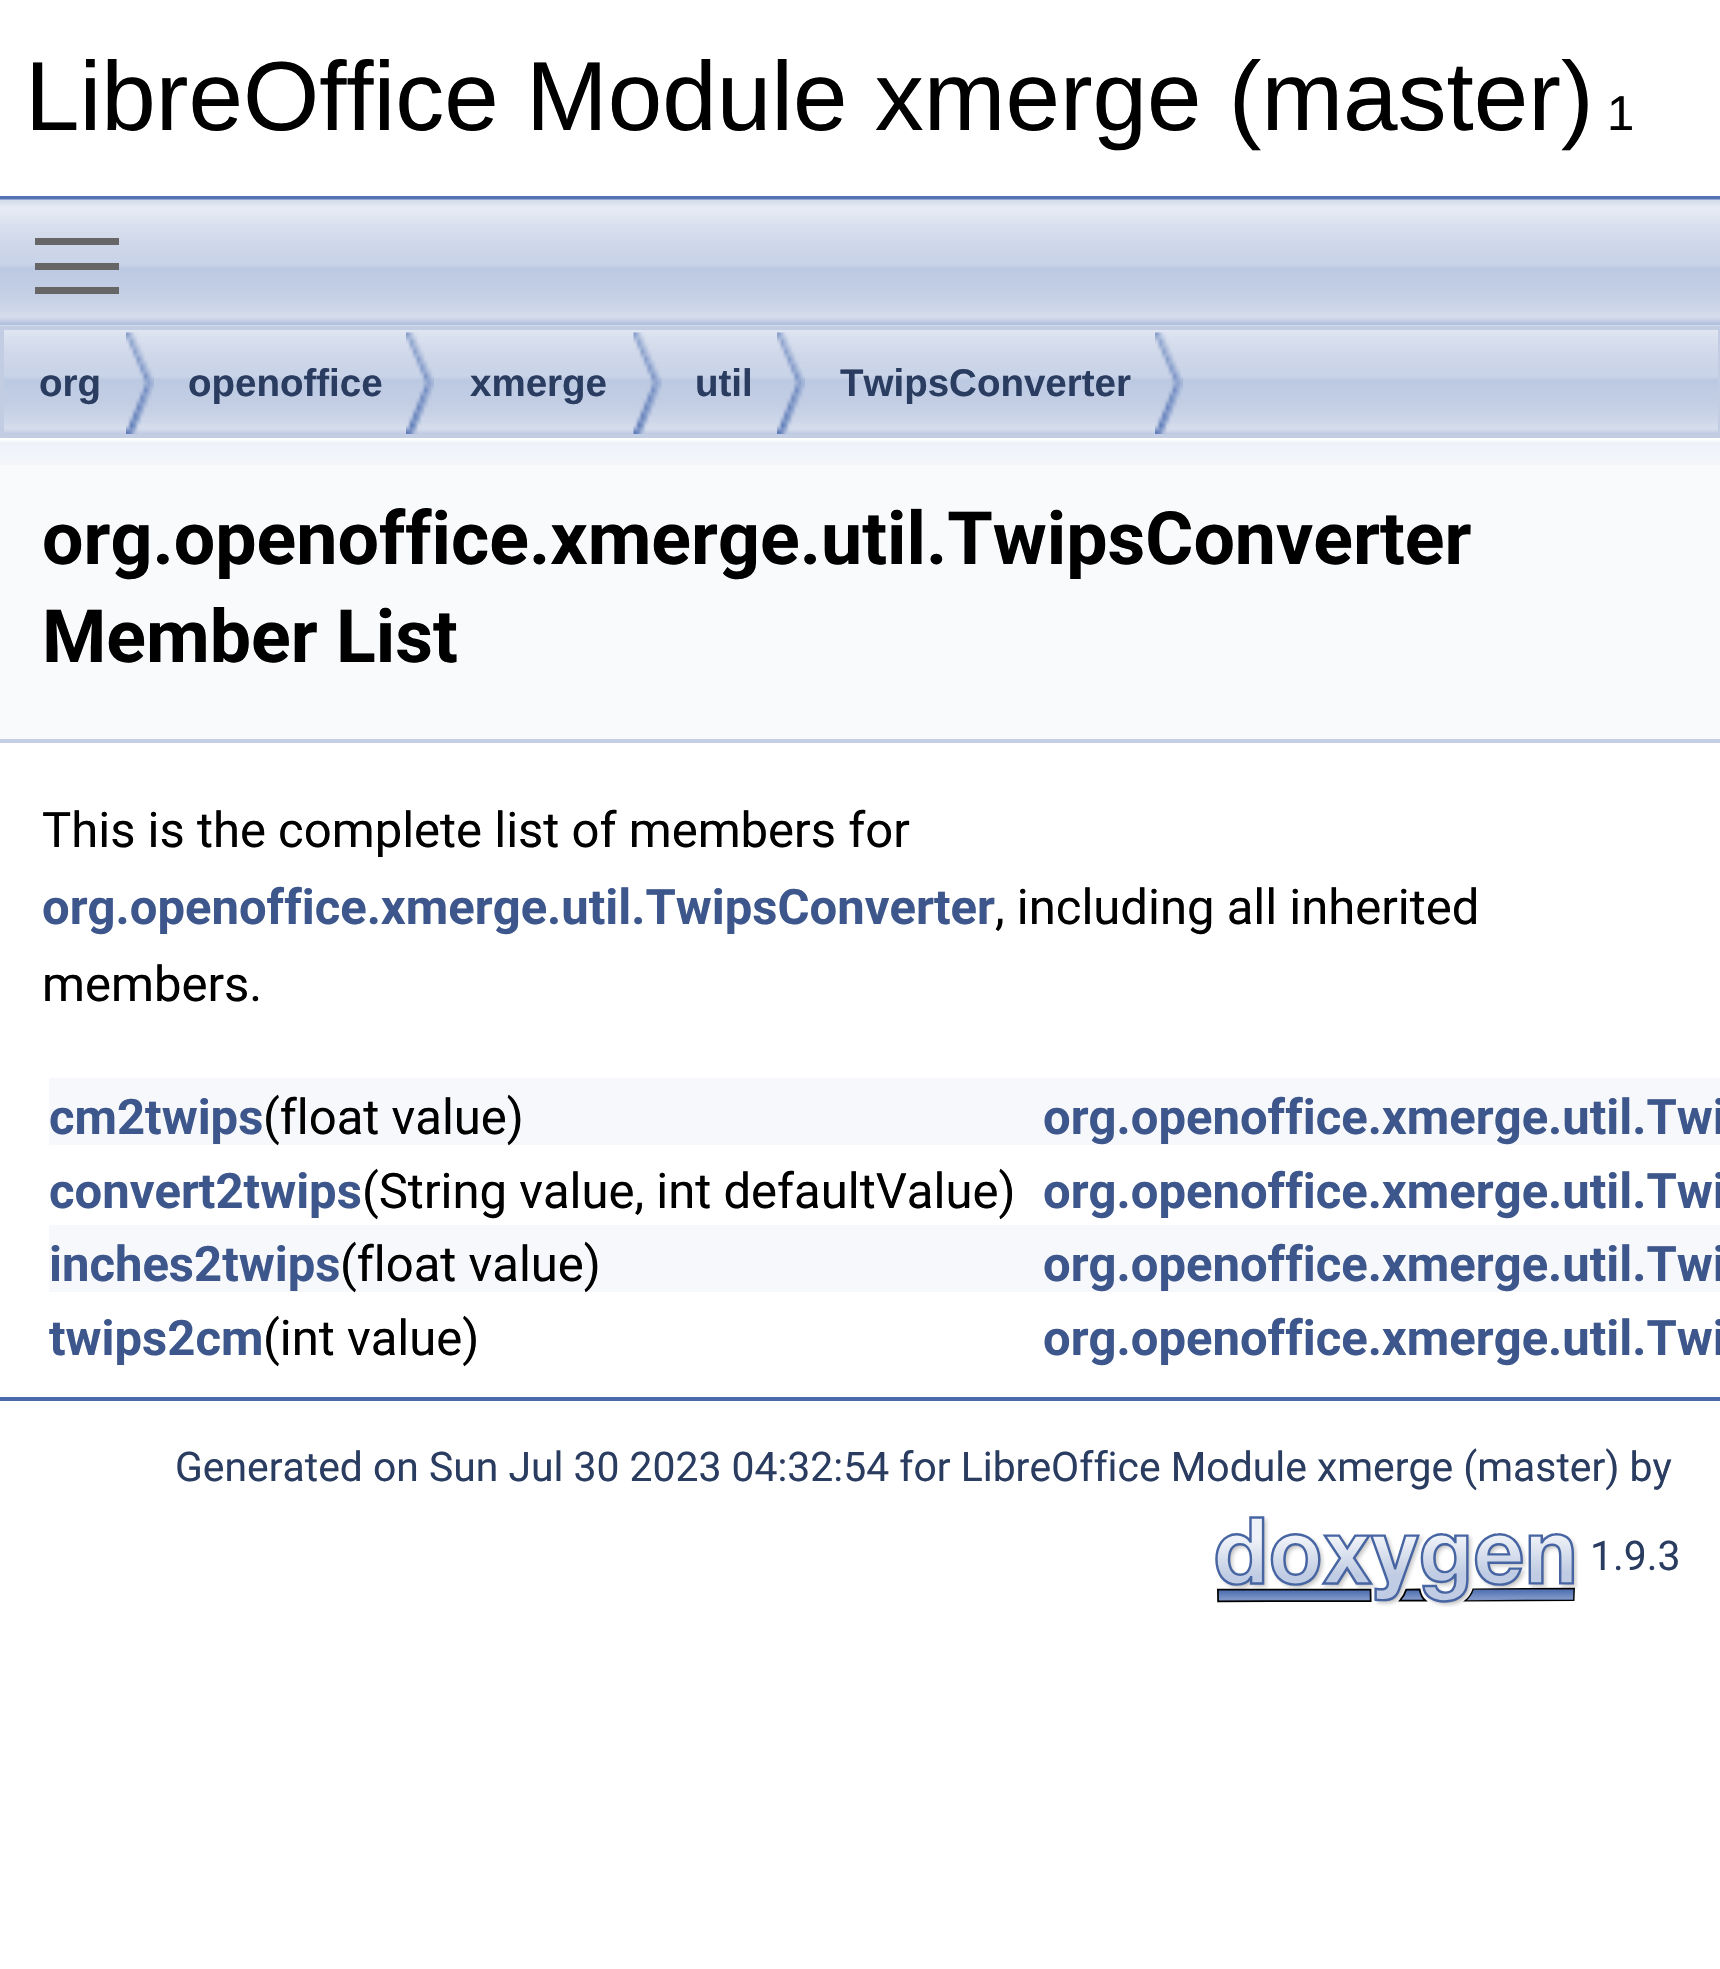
#include "include/core/SkBlurTypes.h"
#include "include/core/SkCanvas.h"
#include "include/core/SkData.h"
#include "include/core/SkFont.h"
#include "include/core/SkFontMgr.h"
#include "include/core/SkImage.h"
#include "include/core/SkMaskFilter.h"
#include "include/core/SkPaint.h"
#include "include/core/SkPathBuilder.h"
#include "include/core/SkTextBlob.h"
#include "include/effects/SkDashPathEffect.h"
#include "include/effects/SkGradientShader.h"
#include "include/utils/SkParsePath.h"

extern sk_sp<SkFontMgr> fontMgr;

static SkFont font(const char* family, int weight, float size, bool italic = false) {
    SkFontStyle style(weight, SkFontStyle::kNormal_Width,
        italic ? SkFontStyle::kItalic_Slant : SkFontStyle::kUpright_Slant);
    SkFont result(fontMgr->matchFamilyStyle(family, style), size);
    result.setSubpixel(true);
    return result;
}

static void drawLabel(SkCanvas* canvas, const char* s, float x, float y, const SkFont& font, SkColor color) {
    SkPaint ink(SkColor4f::FromColor(color));
    ink.setAntiAlias(true);
    canvas->drawString(s, x, y, font, ink);
}

static void fillRect(SkCanvas* canvas, float x, float y, float w, float h, SkColor color) {
    SkPaint ink(SkColor4f::FromColor(color));
    ink.setAntiAlias(true);
    canvas->drawRect(SkRect::MakeXYWH(x, y, w, h), ink);
}

static void drawPhoto(SkCanvas* canvas, const char* path, float x, float y, float w, float h) {
    auto image = SkImages::DeferredFromEncodedData(SkData::MakeFromFileName(path));
    canvas->drawImageRect(image, SkRect::MakeXYWH(x, y, w, h), SkSamplingOptions());
}

void draw(SkCanvas* canvas) {
    SkPaint paint;
    paint.setAntiAlias(true);
    canvas->clear(0xFFFFFFFF);
    fillRect(canvas, 0, 196, 1720, 4, 0xFF5373B4);
    SkFont font1 = font("Liberation Sans", 400, 98);
    drawLabel(canvas, "LibreOffice Module xmerge (master)", 25, 130, font1, 0xFF000000);
    SkFont font2 = font("Liberation Sans", 400, 49);
    drawLabel(canvas, "1", 1607, 130, font2, 0xFF000000);
    drawPhoto(canvas, "assets/img2.png", 0, 325, 1720, 109);
    drawPhoto(canvas, "assets/img1.png", 0, 199, 1720, 127);
    fillRect(canvas, 35, 263, 84, 7, 0xFF666666);
    fillRect(canvas, 35, 238, 84, 7, 0xFF666666);
    fillRect(canvas, 35, 287, 84, 7, 0xFF666666);
    paint.setStroke(true);
    paint.setStrokeWidth(4);
    paint.setColor(0xFFC2CDE4);
    canvas->drawRect(SkRect::MakeXYWH(2, 328, 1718, 108), paint);
    drawPhoto(canvas, "assets/img3.png", 126, 332, 28, 102);
    SkFont font3 = font("Liberation Sans", 700, 38.5f);
    drawLabel(canvas, "org", 39, 396, font3, 0xFF2A3D61);
    drawPhoto(canvas, "assets/img4.png", 406, 332, 28, 102);
    drawLabel(canvas, "openoffice", 188, 396, font3, 0xFF2A3D61);
    drawPhoto(canvas, "assets/img5.png", 633, 332, 29, 102);
    drawLabel(canvas, "xmerge", 470, 396, font3, 0xFF2A3D61);
    drawPhoto(canvas, "assets/img6.png", 777, 332, 28, 102);
    drawLabel(canvas, "util", 695, 396, font3, 0xFF2A3D61);
    drawPhoto(canvas, "assets/img4.png", 1155, 332, 28, 102);
    drawLabel(canvas, "TwipsConverter", 840, 396, font3, 0xFF2A3D61);
    fillRect(canvas, 0, 465, 1720, 274, 0xFFF9FAFC);
    drawPhoto(canvas, "assets/img7.png", 0, 438, 1720, 27);
    fillRect(canvas, 0, 739, 1720, 4, 0xFFC4CFE5);
    SkFont font4 = font("Roboto", 700, 73.5f);
    drawLabel(canvas, "org.openoffice.xmerge.util.TwipsConverter", 42, 564, font4, 0xFF000000);
    drawLabel(canvas, "Member List", 42, 662, font4, 0xFF000000);
    SkFont font5 = font("Roboto", 400, 49);
    drawLabel(canvas, "This is the complete list of members for", 42, 847, font5, 0xFF000000);
    SkFont font6 = font("Roboto", 700, 49);
    drawLabel(canvas, "org.openoffice.xmerge.util.TwipsConverter", 42, 924, font6, 0xFF3D578C);
    drawLabel(canvas, ", including all inherited", 995, 924, font5, 0xFF000000);
    drawLabel(canvas, "members.", 42, 1001, font5, 0xFF000000);
    fillRect(canvas, 49, 1078, 1671, 67, 0xFFF7F8FB);
    drawLabel(canvas, "cm2twips", 49, 1134, font6, 0xFF3D578C);
    drawLabel(canvas, "(float value)", 263, 1134, font5, 0xFF000000);
    drawLabel(canvas, "org.openoffice.xmerge.util.Twi", 1043, 1134, font6, 0xFF3D578C);
    drawLabel(canvas, "convert2twips", 49, 1208, font6, 0xFF3D578C);
    drawLabel(canvas, "(String value, int defaultValue)", 362, 1208, font5, 0xFF000000);
    drawLabel(canvas, "org.openoffice.xmerge.util.Twi", 1043, 1208, font6, 0xFF3D578C);
    fillRect(canvas, 49, 1225, 1671, 67, 0xFFF7F8FB);
    drawLabel(canvas, "inches2twips", 49, 1281, font6, 0xFF3D578C);
    drawLabel(canvas, "(float value)", 340, 1281, font5, 0xFF000000);
    drawLabel(canvas, "org.openoffice.xmerge.util.Twi", 1043, 1281, font6, 0xFF3D578C);
    drawLabel(canvas, "twips2cm", 49, 1355, font6, 0xFF3D578C);
    drawLabel(canvas, "(int value)", 263, 1355, font5, 0xFF000000);
    drawLabel(canvas, "org.openoffice.xmerge.util.Twi", 1043, 1355, font6, 0xFF3D578C);
    fillRect(canvas, 0, 1397, 1720, 4, 0xFF4A6AAA);
    SkFont font7 = font("Roboto", 400, 40.85f);
    drawLabel(canvas, "Generated on Sun Jul 30 2023 04:32:54 for LibreOffice Module xmerge (master) by", 175, 1481, font7, 0xFF2A3D61);
    drawPhoto(canvas, "assets/img8.png", 1215, 1516, 363, 91);
    drawLabel(canvas, "1.9.3", 1590, 1570, font7, 0xFF2A3D61);
}
